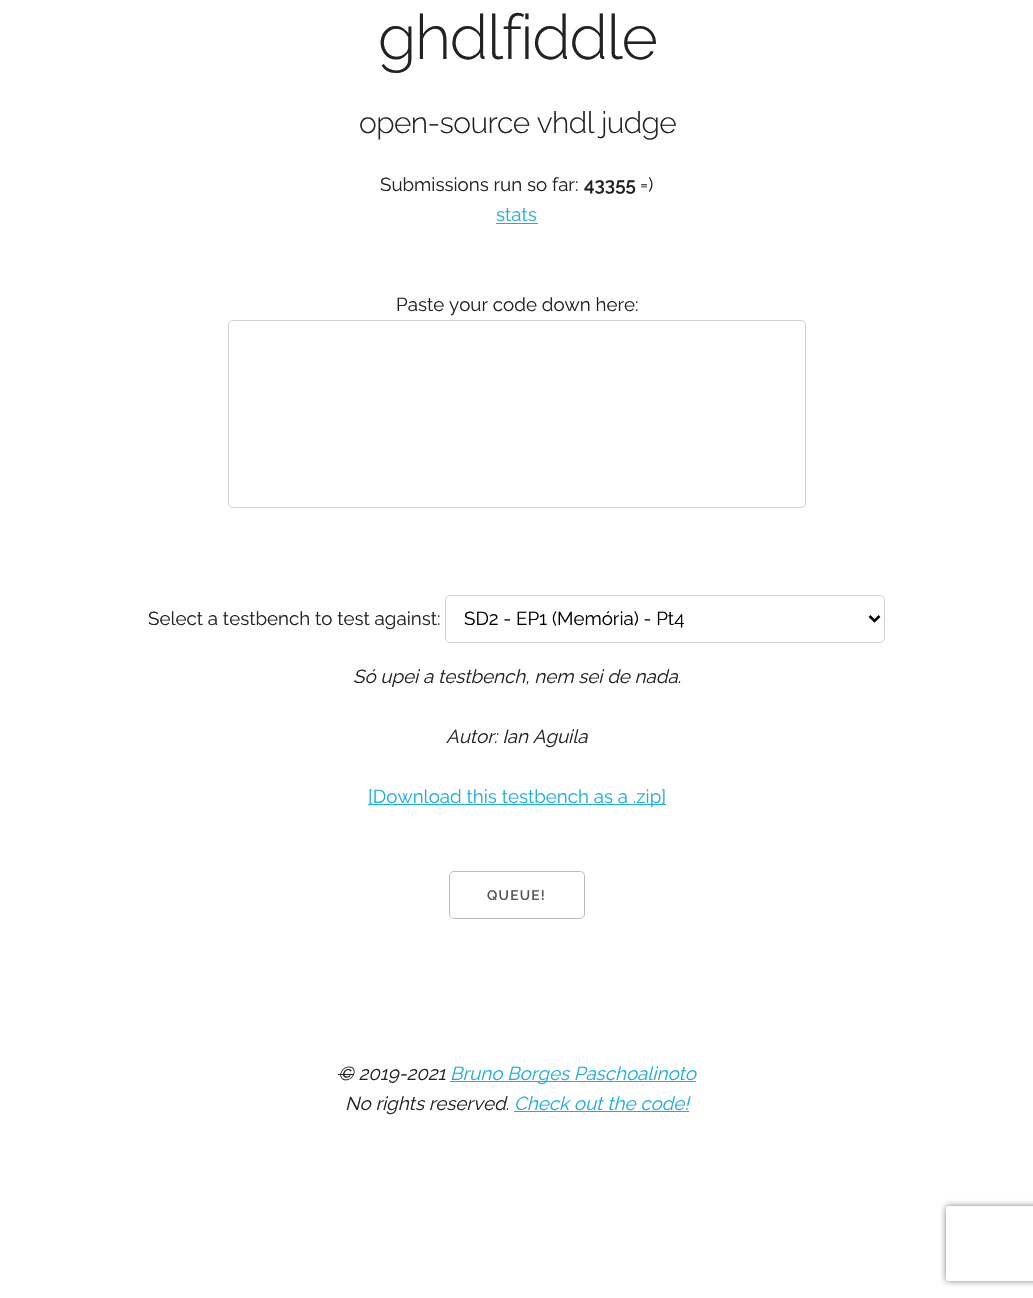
#include "include/core/SkBlurTypes.h"
#include "include/core/SkCanvas.h"
#include "include/core/SkData.h"
#include "include/core/SkFont.h"
#include "include/core/SkFontMgr.h"
#include "include/core/SkImage.h"
#include "include/core/SkMaskFilter.h"
#include "include/core/SkPaint.h"
#include "include/core/SkPathBuilder.h"
#include "include/core/SkTextBlob.h"
#include "include/effects/SkDashPathEffect.h"
#include "include/effects/SkGradientShader.h"
#include "include/utils/SkParsePath.h"

extern sk_sp<SkFontMgr> fontMgr;

static SkFont font(const char* family, int weight, float size, bool italic = false) {
    SkFontStyle style(weight, SkFontStyle::kNormal_Width,
        italic ? SkFontStyle::kItalic_Slant : SkFontStyle::kUpright_Slant);
    SkFont result(fontMgr->matchFamilyStyle(family, style), size);
    result.setSubpixel(true);
    return result;
}

static void drawLabel(SkCanvas* canvas, const char* s, float x, float y, const SkFont& font, SkColor color) {
    SkPaint ink(SkColor4f::FromColor(color));
    ink.setAntiAlias(true);
    canvas->drawString(s, x, y, font, ink);
}

static void drawTracked(SkCanvas* canvas, const char* s, float x, float y, const SkFont& font, const SkPaint& ink, float letter, float word) {
    std::vector<SkGlyphID> glyphs(font.countText(s, strlen(s), SkTextEncoding::kUTF8));
    std::vector<float> xs(glyphs.size());
    font.textToGlyphs(s, strlen(s), SkTextEncoding::kUTF8, glyphs);
    font.getXPos(glyphs, xs, x);
    float extra = 0;
    for (size_t i = 0; i < glyphs.size(); i++) {
        xs[i] += extra;
        extra += letter + word * (glyphs[i] == font.unicharToGlyph(' '));
    }
    canvas->drawTextBlob(SkTextBlob::MakeFromPosHGlyphs(glyphs, xs, y, font), 0, 0, ink);
}

static void fillRect(SkCanvas* canvas, float x, float y, float w, float h, SkColor color) {
    SkPaint ink(SkColor4f::FromColor(color));
    ink.setAntiAlias(true);
    canvas->drawRect(SkRect::MakeXYWH(x, y, w, h), ink);
}

static SkPath parsePath(const char* data, bool evenOdd = false) {
    SkPath result = *SkParsePath::FromSVGString(data);
    if (evenOdd) result.setFillType(SkPathFillType::kEvenOdd);
    return result;
}

void draw(SkCanvas* canvas) {
    SkPaint paint;
    paint.setAntiAlias(true);
    canvas->clear(0xFFFFFFFF);
    SkFont font1 = font("Raleway", 300, 62.5f);
    paint.setColor(0xFF222222);
    drawTracked(canvas, "ghdlfiddle", 378, 59, font1, paint, -1.25f, 0);
    SkFont font2 = font("Raleway", 300, 30);
    drawTracked(canvas, "open-source vhdl judge", 359, 133, font2, paint, -0.6f, 0);
    SkFont font3 = font("Raleway", 400, 18.75f);
    drawLabel(canvas, "Submissions run so far:", 380, 191, font3, 0xFF222222);
    SkFont font4 = font("Raleway", 600, 18.75f);
    drawLabel(canvas, "43355", 584, 191, font4, 0xFF222222);
    drawLabel(canvas, "=)", 640, 191, font3, 0xFF222222);
    drawLabel(canvas, "stats", 496, 221, font3, 0xFF1EAEDB);
    fillRect(canvas, 496, 223, 42, 1, 0xFF1EAEDB);
    drawLabel(canvas, "Paste your code down here:", 396, 311, font3, 0xFF222222);
    paint.setStroke(true);
    paint.setStrokeWidth(1);
    paint.setColor(0xFFD1D1D1);
    canvas->drawRoundRect(SkRect::MakeXYWH(228.5f, 320.5f, 577, 187), 4.5f, 4.5f, paint);
    drawLabel(canvas, "Select a testbench to test against:", 148, 625, font3, 0xFF222222);
    canvas->drawRoundRect(SkRect::MakeXYWH(445.5f, 595.5f, 439, 47), 4.5f, 4.5f, paint);
    paint.setStrokeWidth(2.5f);
    paint.setColor(0xFF000000);
    canvas->drawPath(parsePath("M869.5 616L874.5 621L879.5 616"), paint);
    drawLabel(canvas, "SD2 - EP1 (Memória) - Pt4", 464, 625, font3, 0xFF000000);
    SkFont font5 = font("Raleway", 400, 18.75f, true);
    drawLabel(canvas, "Só upei a testbench, nem sei de nada.", 353, 683, font5, 0xFF222222);
    drawLabel(canvas, "Autor: Ian Aguila", 446, 743, font5, 0xFF222222);
    fillRect(canvas, 368, 804, 298, 1, 0xFF1EAEDB);
    drawLabel(canvas, "[Download this testbench as a .zip]", 368, 803, font3, 0xFF1EAEDB);
    paint.setStrokeWidth(1);
    paint.setColor(0xFFBBBBBB);
    canvas->drawRoundRect(SkRect::MakeXYWH(449.5f, 871.5f, 135, 47), 4.5f, 4.5f, paint);
    SkFont font6 = font("Raleway", 600, 13.75f);
    paint.setStroke(false);
    paint.setColor(0xFF555555);
    drawTracked(canvas, "QUEUE!", 487, 900, font6, paint, 1.25f, 0);
    drawLabel(canvas, "© 2019-2021", 338, 1080, font5, 0xFF222222);
    fillRect(canvas, 338, 1074, 16, 1, 0xFF222222);
    fillRect(canvas, 450, 1081, 246, 1, 0xFF1EAEDB);
    drawLabel(canvas, "Bruno Borges Paschoalinoto", 450, 1080, font5, 0xFF1EAEDB);
    drawLabel(canvas, "No rights reserved.", 345, 1110, font5, 0xFF222222);
    drawLabel(canvas, "Check out the code!", 514, 1110, font5, 0xFF1EAEDB);
    fillRect(canvas, 514, 1111, 175, 1, 0xFF1EAEDB);
    canvas->save();
    canvas->clipPath(parsePath("M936 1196H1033V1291H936ZM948.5 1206H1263.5C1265 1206 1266 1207 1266 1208.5V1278.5C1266 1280 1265 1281 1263.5 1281H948.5C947 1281 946 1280 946 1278.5V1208.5C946 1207 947 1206 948.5 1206Z", true), true);
    paint.setColor(0xFF808080);
    paint.setMaskFilter(SkMaskFilter::MakeBlur(kNormal_SkBlurStyle, 3));
    canvas->drawRoundRect(SkRect::MakeXYWH(946, 1206, 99, 75), 2.5f, 2.5f, paint);
    paint.setMaskFilter(nullptr);
    canvas->restore();
}
